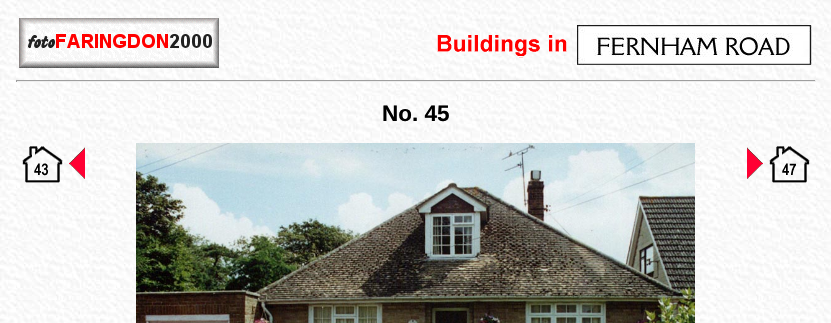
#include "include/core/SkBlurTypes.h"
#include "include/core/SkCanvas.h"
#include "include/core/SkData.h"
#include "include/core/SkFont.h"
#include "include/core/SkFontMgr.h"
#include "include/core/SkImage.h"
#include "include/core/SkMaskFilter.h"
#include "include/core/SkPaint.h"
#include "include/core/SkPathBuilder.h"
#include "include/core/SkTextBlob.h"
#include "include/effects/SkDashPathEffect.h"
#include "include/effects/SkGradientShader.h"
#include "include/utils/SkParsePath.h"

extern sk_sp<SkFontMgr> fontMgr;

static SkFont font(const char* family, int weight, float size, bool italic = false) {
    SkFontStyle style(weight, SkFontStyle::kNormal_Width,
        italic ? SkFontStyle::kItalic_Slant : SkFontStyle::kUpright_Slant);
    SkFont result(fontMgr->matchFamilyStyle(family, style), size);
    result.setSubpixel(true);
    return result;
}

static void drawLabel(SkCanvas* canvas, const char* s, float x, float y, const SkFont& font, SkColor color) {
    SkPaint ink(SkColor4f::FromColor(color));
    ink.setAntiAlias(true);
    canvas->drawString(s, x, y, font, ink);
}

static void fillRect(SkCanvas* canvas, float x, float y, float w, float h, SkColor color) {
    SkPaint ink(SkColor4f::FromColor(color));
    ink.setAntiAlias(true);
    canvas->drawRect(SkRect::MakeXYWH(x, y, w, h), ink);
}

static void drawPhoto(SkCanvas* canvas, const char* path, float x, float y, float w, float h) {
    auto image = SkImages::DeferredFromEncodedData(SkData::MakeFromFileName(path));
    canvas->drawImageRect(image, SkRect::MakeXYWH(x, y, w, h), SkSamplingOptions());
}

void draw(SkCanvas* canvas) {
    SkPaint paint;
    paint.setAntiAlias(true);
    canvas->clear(0xFFFFFFFF);
    drawPhoto(canvas, "assets/img1.png", 0, 0, 831, 323);
    drawPhoto(canvas, "assets/img2.png", 19, 18, 200, 50);
    drawPhoto(canvas, "assets/img3.png", 437, 35, 130, 23);
    drawPhoto(canvas, "assets/img4.png", 577, 25, 235, 40);
    fillRect(canvas, 16, 80, 800, 1, 0xFF9F9F9F);
    fillRect(canvas, 815, 80, 1, 2, 0xFFEEEEEE);
    fillRect(canvas, 16, 81, 800, 1, 0xFFEEEEEE);
    fillRect(canvas, 16, 80, 1, 2, 0xFF9F9F9F);
    SkFont font1 = font("Liberation Sans", 700, 22.5f);
    drawLabel(canvas, "No. 45", 382, 121, font1, 0xFF000000);
    drawPhoto(canvas, "assets/img5.png", 22, 146, 41, 37);
    drawPhoto(canvas, "assets/img6.png", 69, 147, 16, 32);
    drawPhoto(canvas, "assets/img7.png", 136, 143, 559, 180);
    drawPhoto(canvas, "assets/img8.png", 747, 147, 16, 32);
    drawPhoto(canvas, "assets/img9.png", 769, 146, 41, 37);
}
